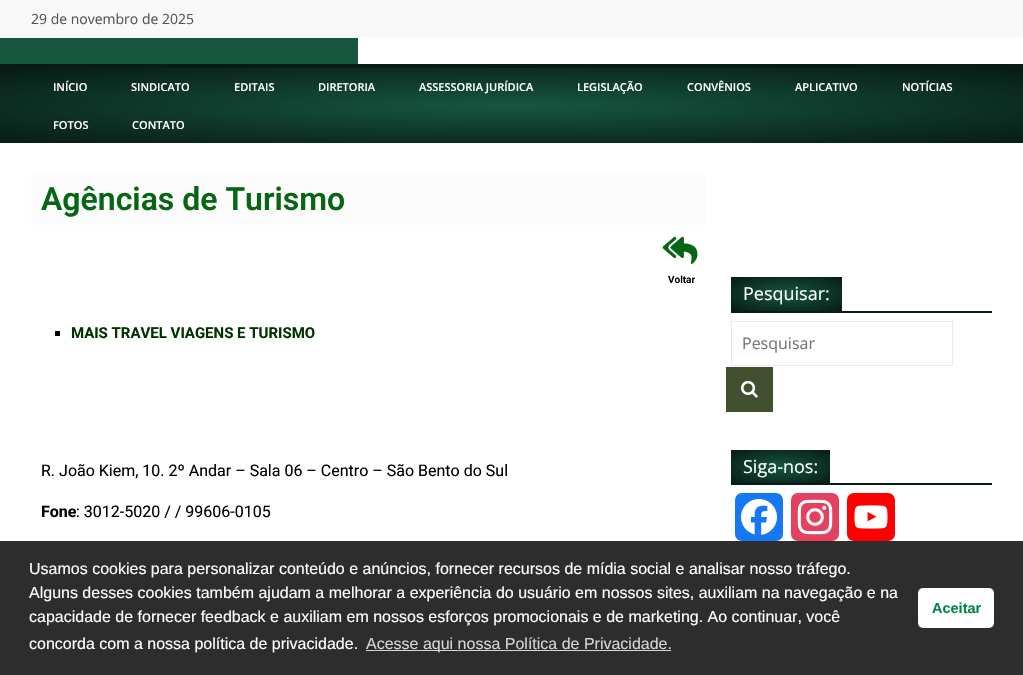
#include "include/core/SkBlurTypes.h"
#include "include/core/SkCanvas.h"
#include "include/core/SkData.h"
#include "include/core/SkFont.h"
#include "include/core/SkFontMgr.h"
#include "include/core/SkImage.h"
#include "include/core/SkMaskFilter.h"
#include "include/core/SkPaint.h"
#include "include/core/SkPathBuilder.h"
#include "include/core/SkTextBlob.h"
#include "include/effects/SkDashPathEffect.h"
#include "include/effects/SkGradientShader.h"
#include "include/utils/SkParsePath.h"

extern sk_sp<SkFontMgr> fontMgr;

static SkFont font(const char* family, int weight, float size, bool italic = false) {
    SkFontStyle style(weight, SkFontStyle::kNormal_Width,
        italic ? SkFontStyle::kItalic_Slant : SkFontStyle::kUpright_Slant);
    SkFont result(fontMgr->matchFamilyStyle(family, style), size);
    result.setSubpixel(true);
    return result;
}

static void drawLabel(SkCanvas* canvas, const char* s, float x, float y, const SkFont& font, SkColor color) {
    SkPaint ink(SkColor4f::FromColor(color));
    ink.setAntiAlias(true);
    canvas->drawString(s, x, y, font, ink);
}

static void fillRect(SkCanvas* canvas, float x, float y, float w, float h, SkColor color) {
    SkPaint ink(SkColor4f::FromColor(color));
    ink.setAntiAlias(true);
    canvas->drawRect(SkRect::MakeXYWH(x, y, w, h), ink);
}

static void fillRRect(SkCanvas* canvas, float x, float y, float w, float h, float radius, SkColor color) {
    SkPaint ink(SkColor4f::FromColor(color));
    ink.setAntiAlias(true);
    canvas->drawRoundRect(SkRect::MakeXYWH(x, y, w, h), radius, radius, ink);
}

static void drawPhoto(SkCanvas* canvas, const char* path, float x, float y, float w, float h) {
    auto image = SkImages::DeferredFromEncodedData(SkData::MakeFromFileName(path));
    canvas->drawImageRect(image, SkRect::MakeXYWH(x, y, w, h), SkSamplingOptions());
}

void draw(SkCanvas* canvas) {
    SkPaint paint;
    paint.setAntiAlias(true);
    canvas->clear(0xFF165740);
    fillRect(canvas, 358, 38, 665, 26, 0xFFFFFFFF);
    fillRect(canvas, 0, 0, 1023, 38, 0xFFF8F8F8);
    SkFont font1 = font("Open Sans", 400, 14);
    drawLabel(canvas, "29 de novembro de 2025", 31, 24, font1, 0xFF555555);
    {
        const SkColor colors[] = {0xFF165741, 0xFF081B14};
        const float stops[] = {0, 1};
        SkMatrix m = SkMatrix::Translate(512, 106).preScale(723, 53);
        paint.setShader(SkGradientShader::MakeRadial({0, 0}, 1, colors, stops, 2, SkTileMode::kClamp, 0, &m));
        paint.setAlpha(255);
    }
    canvas->drawRect(SkRect::MakeXYWH(0, 68, 1023, 75), paint);
    fillRect(canvas, 0, 64, 1023, 4, 0xFF081B14);
    SkFont font2 = font("Open Sans", 600, 11);
    drawLabel(canvas, "INÍCIO", 53, 91, font2, 0xFFFFFFFF);
    drawLabel(canvas, "SINDICATO", 131, 91, font2, 0xFFFFFFFF);
    drawLabel(canvas, "EDITAIS", 234, 91, font2, 0xFFFFFFFF);
    drawLabel(canvas, "DIRETORIA", 318, 91, font2, 0xFFFFFFFF);
    drawLabel(canvas, "ASSESSORIA JURÍDICA", 419, 91, font2, 0xFFFFFFFF);
    drawLabel(canvas, "LEGISLAÇÃO", 577, 91, font2, 0xFFFFFFFF);
    drawLabel(canvas, "CONVÊNIOS", 687, 91, font2, 0xFFFFFFFF);
    drawLabel(canvas, "APLICATIVO", 795, 91, font2, 0xFFFFFFFF);
    drawLabel(canvas, "NOTÍCIAS", 902, 91, font2, 0xFFFFFFFF);
    drawLabel(canvas, "FOTOS", 53, 129, font2, 0xFFFFFFFF);
    drawLabel(canvas, "CONTATO", 132, 129, font2, 0xFFFFFFFF);
    fillRect(canvas, 0, 143, 1023, 398, 0xFFFFFFFF);
    fillRect(canvas, 31, 173, 675, 52, 0xFFFCFCFC);
    SkFont font3 = font("Roboto", 600, 32);
    drawLabel(canvas, "Agências de Turismo", 41, 210, font3, 0xFF066614);
    drawPhoto(canvas, "assets/img1.png", 662, 236, 36, 28);
    SkFont font4 = font("Roboto", 600, 10);
    drawLabel(canvas, "Voltar", 668, 283, font4, 0xFF000000);
    fillRect(canvas, 55, 331, 5, 5, 0xFF000000);
    SkFont font5 = font("Roboto", 700, 15);
    drawLabel(canvas, "MAIS TRAVEL VIAGENS E TURISMO", 71, 338, font5, 0xFF003300);
    SkFont font6 = font("Roboto", 400, 16);
    drawLabel(canvas, "R. João Kiem, 10. 2º Andar – Sala 06 – Centro – São Bento do Sul", 41, 476, font6, 0xFF000000);
    SkFont font7 = font("Roboto", 700, 16);
    drawLabel(canvas, "Fone", 41, 517, font7, 0xFF000000);
    drawLabel(canvas, ": 3012-5020 / / 99606-0105", 76, 517, font6, 0xFF000000);
    fillRect(canvas, 731, 311, 261, 2, 0xFF081B14);
    {
        const SkColor colors[] = {0xFF165741, 0xFF081B14};
        const float stops[] = {0, 1};
        SkMatrix m = SkMatrix::Translate(787, 294).preScale(78, 24);
        paint.setShader(SkGradientShader::MakeRadial({0, 0}, 1, colors, stops, 2, SkTileMode::kClamp, 0, &m));
        paint.setAlpha(255);
    }
    canvas->drawRect(SkRect::MakeXYWH(731, 277, 111, 34), paint);
    SkFont font8 = font("Open Sans", 400, 18);
    drawLabel(canvas, "Pesquisar:", 743, 300, font8, 0xFFFFFFFF);
    paint.setStroke(true);
    paint.setStrokeWidth(1);
    paint.setShader(nullptr);
    paint.setColor(0xFFEAEAEA);
    canvas->drawRect(SkRect::MakeXYWH(731.5f, 321.5f, 221, 44), paint);
    SkFont font9 = font("Open Sans", 400, 16);
    drawLabel(canvas, "Pesquisar", 742, 349, font9, 0xFF757575);
    fillRect(canvas, 726, 367, 47, 45, 0xFF42502F);
    drawPhoto(canvas, "assets/img2.png", 741, 380, 17, 18);
    fillRect(canvas, 731, 483, 261, 2, 0xFF081B14);
    paint.setStroke(false);
    {
        const SkColor colors[] = {0xFF165741, 0xFF081B14};
        const float stops[] = {0, 1};
        SkMatrix m = SkMatrix::Translate(781, 467).preScale(70, 23);
        paint.setShader(SkGradientShader::MakeRadial({0, 0}, 1, colors, stops, 2, SkTileMode::kClamp, 0, &m));
        paint.setAlpha(255);
    }
    canvas->drawRect(SkRect::MakeXYWH(731, 450, 99, 33), paint);
    drawLabel(canvas, "Siga-nos:", 743, 473, font8, 0xFFFFFFFF);
    fillRRect(canvas, 735, 493, 48, 48, 7, 0xFF1877F2);
    drawPhoto(canvas, "assets/img3.png", 741, 499, 36, 36);
    fillRRect(canvas, 791, 493, 48, 48, 7, 0xFFE4405F);
    drawPhoto(canvas, "assets/img4.png", 797, 499, 36, 36);
    fillRRect(canvas, 847, 493, 48, 48, 7, 0xFFFF0000);
    drawPhoto(canvas, "assets/img5.png", 854, 505, 34, 24);
    fillRect(canvas, 0, 541, 1023, 134, 0xFF2D2D2D);
    SkFont font10 = font("Liberation Sans", 400, 16);
    drawLabel(canvas, "Usamos cookies para personalizar conteúdo e anúncios, fornecer recursos de mídia social e analisar nosso tráfego.", 29, 574, font10, 0xFFFFFFFF);
    drawLabel(canvas, "Alguns desses cookies também ajudam a melhorar a experiência do usuário em nossos sites, auxiliam na navegação e na", 29, 598, font10, 0xFFFFFFFF);
    drawLabel(canvas, "capacidade de fornecer feedback e auxiliam em nossos esforços promocionais e de marketing. Ao continuar, você", 29, 622, font10, 0xFFFFFFFF);
    drawLabel(canvas, "concorda com a nossa política de privacidade.", 29, 649, font10, 0xFFFFFFFF);
    fillRect(canvas, 366, 650, 305, 1, 0xFFD5D5D5);
    drawLabel(canvas, "Acesse aqui nossa Política de Privacidade.", 366, 649, font10, 0xFFD5D5D5);
    fillRRect(canvas, 918, 588, 76, 40, 5, 0xFFFFFFFF);
    SkFont font11 = font("Liberation Sans", 700, 14.5f);
    drawLabel(canvas, "Aceitar", 932, 613, font11, 0xFF008349);
}
